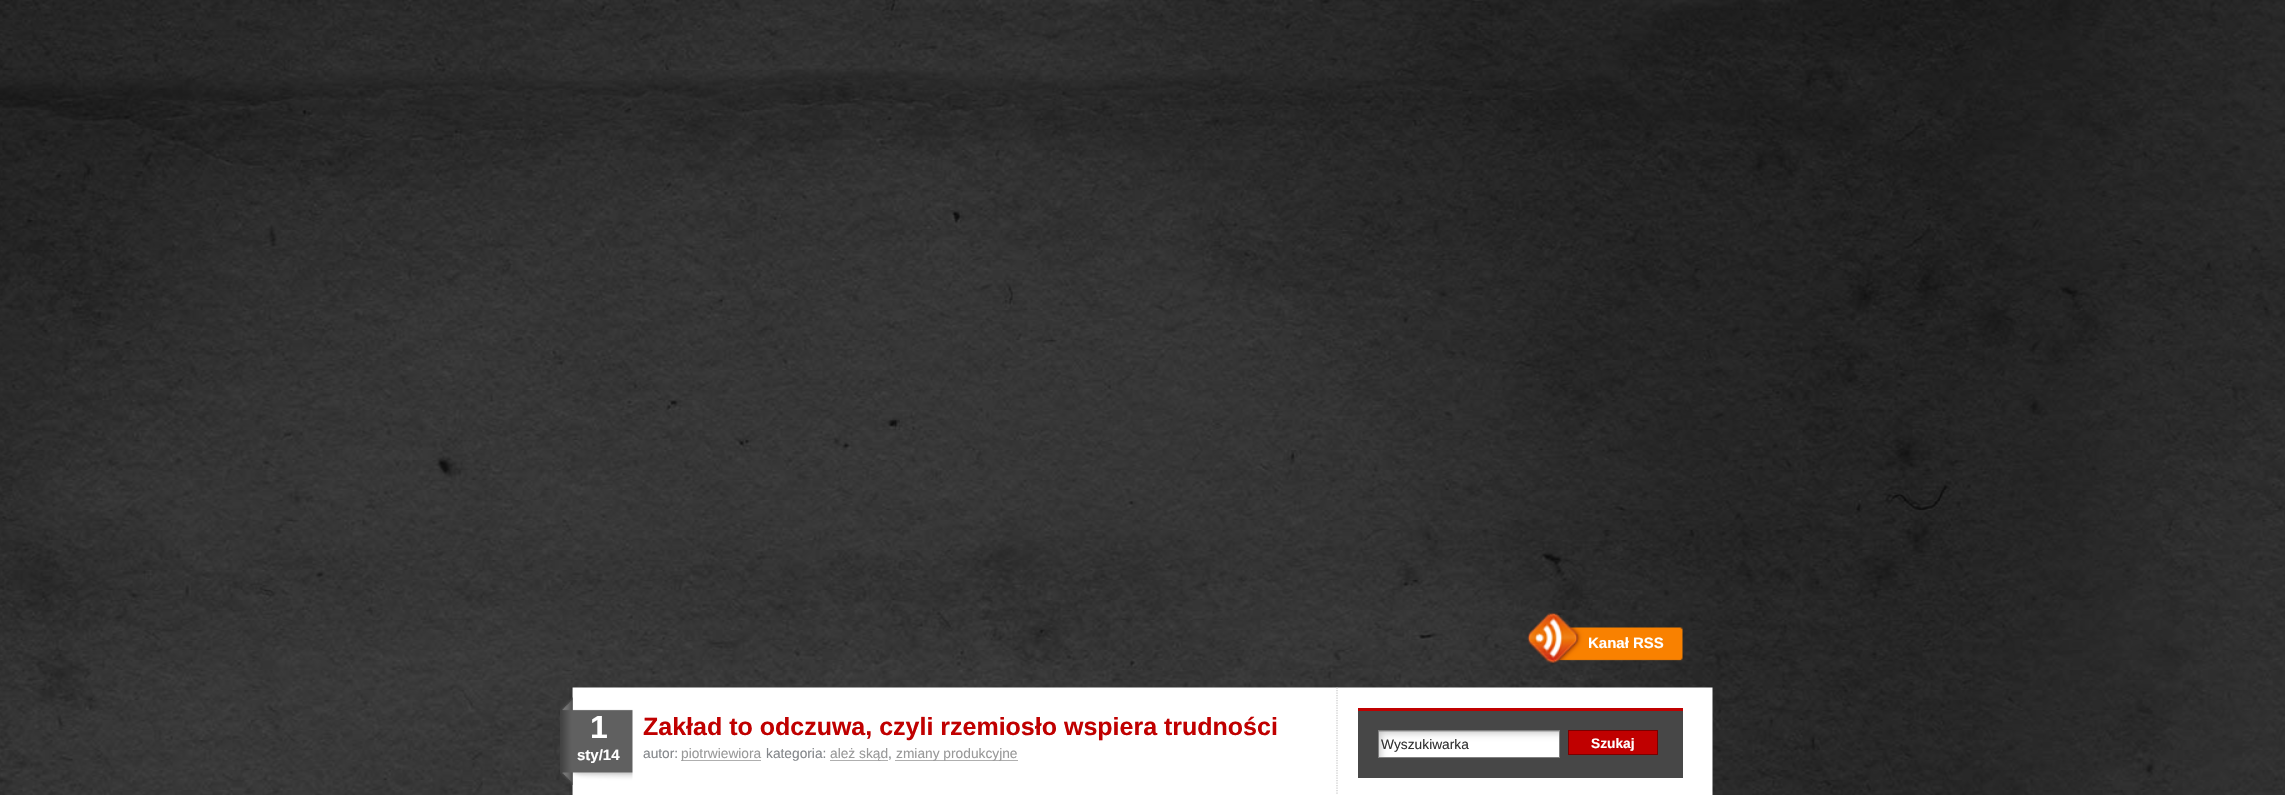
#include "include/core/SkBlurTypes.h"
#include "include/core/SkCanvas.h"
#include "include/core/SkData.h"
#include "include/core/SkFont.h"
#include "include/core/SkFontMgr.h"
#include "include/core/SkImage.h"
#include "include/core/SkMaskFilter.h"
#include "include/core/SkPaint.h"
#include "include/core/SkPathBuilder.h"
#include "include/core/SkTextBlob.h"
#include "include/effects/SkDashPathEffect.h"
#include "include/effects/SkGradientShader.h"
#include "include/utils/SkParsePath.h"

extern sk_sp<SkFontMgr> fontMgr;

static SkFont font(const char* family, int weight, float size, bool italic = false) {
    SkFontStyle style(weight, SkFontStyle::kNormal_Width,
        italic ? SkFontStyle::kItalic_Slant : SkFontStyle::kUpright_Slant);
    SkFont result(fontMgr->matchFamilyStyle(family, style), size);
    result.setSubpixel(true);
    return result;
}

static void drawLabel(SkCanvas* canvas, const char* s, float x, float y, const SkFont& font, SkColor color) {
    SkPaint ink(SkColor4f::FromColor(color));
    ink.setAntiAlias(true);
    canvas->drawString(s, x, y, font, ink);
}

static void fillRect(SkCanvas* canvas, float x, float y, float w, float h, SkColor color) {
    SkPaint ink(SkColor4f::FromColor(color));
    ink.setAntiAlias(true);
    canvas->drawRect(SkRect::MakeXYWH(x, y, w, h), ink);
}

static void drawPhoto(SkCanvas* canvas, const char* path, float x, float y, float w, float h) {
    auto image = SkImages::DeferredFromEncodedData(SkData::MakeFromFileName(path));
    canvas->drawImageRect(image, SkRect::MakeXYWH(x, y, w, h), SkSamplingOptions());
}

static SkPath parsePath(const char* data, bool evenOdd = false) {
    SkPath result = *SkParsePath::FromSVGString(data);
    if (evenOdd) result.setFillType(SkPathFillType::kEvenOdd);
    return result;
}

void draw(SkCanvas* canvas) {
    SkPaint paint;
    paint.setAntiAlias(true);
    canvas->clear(0xFFFFFFFF);
    drawPhoto(canvas, "assets/img1.png", 0, 0, 2285, 795);
    drawPhoto(canvas, "assets/img2.png", 1527, 612, 156, 52);
    SkFont font1 = font("Liberation Sans", 700, 15);
    drawLabel(canvas, "Kanał RSS", 1588, 648, font1, 0xFFFFFFFF);
    drawPhoto(canvas, "assets/img3.png", 569, 687, 1144, 108);
    paint.setStroke(true);
    paint.setStrokeWidth(1.2f);
    paint.setColor(0xFFC9C9C9);
    paint.setPathEffect(SkDashPathEffect::Make({{1.25f, 1.25f}}, 0));
    canvas->drawPath(parsePath("M1337 687.5V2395"), paint);
    paint.setPathEffect(nullptr);
    drawPhoto(canvas, "assets/img4.png", 560, 697, 73, 88);
    SkFont font2 = font("Liberation Sans", 700, 32);
    drawLabel(canvas, "1", 590, 738, font2, 0xFFFFFFFF);
    drawLabel(canvas, "sty/14", 577, 760, font1, 0xFFFFFFFF);
    SkFont font3 = font("Liberation Sans", 700, 25);
    drawLabel(canvas, "Zakład to odczuwa, czyli rzemiosło wspiera trudności", 643, 735, font3, 0xFFC00000);
    SkFont font4 = font("Liberation Sans", 400, 13.75f);
    drawLabel(canvas, "autor:", 643, 758, font4, 0xFF84878B);
    fillRect(canvas, 681, 760, 80, 1, 0xFFAFAFAF);
    drawLabel(canvas, "piotrwiewiora", 681, 758, font4, 0xFF999999);
    drawLabel(canvas, "kategoria:", 766, 758, font4, 0xFF84878B);
    fillRect(canvas, 830, 760, 58, 1, 0xFFAFAFAF);
    drawLabel(canvas, "ależ skąd", 830, 758, font4, 0xFF999999);
    drawLabel(canvas, ",", 888, 758, font4, 0xFF84878B);
    fillRect(canvas, 895, 760, 123, 1, 0xFFAFAFAF);
    drawLabel(canvas, "zmiany produkcyjne", 896, 758, font4, 0xFF999999);
    fillRect(canvas, 1358, 711, 325, 67, 0xFF474747);
    fillRect(canvas, 1358, 708, 325, 3, 0xFFC00000);
    drawPhoto(canvas, "assets/img5.png", 1379, 731, 180, 26);
    paint.setStrokeWidth(1);
    paint.setColor(0xFF7F7F7F);
    canvas->drawRect(SkRect::MakeXYWH(1378.5f, 730.5f, 181, 27), paint);
    drawLabel(canvas, "Wyszukiwarka", 1381, 749, font4, 0xFF333333);
    paint.setStroke(false);
    paint.setColor(0xFFC00000);
    canvas->drawRect(SkRect::MakeXYWH(1568.5f, 730.5f, 89, 24), paint);
    paint.setStroke(true);
    paint.setColor(0xFF7A0000);
    canvas->drawRect(SkRect::MakeXYWH(1568.5f, 730.5f, 89, 24), paint);
    SkFont font5 = font("Liberation Sans", 700, 13.75f);
    drawLabel(canvas, "Szukaj", 1591, 748, font5, 0xFFFFFFFF);
}
